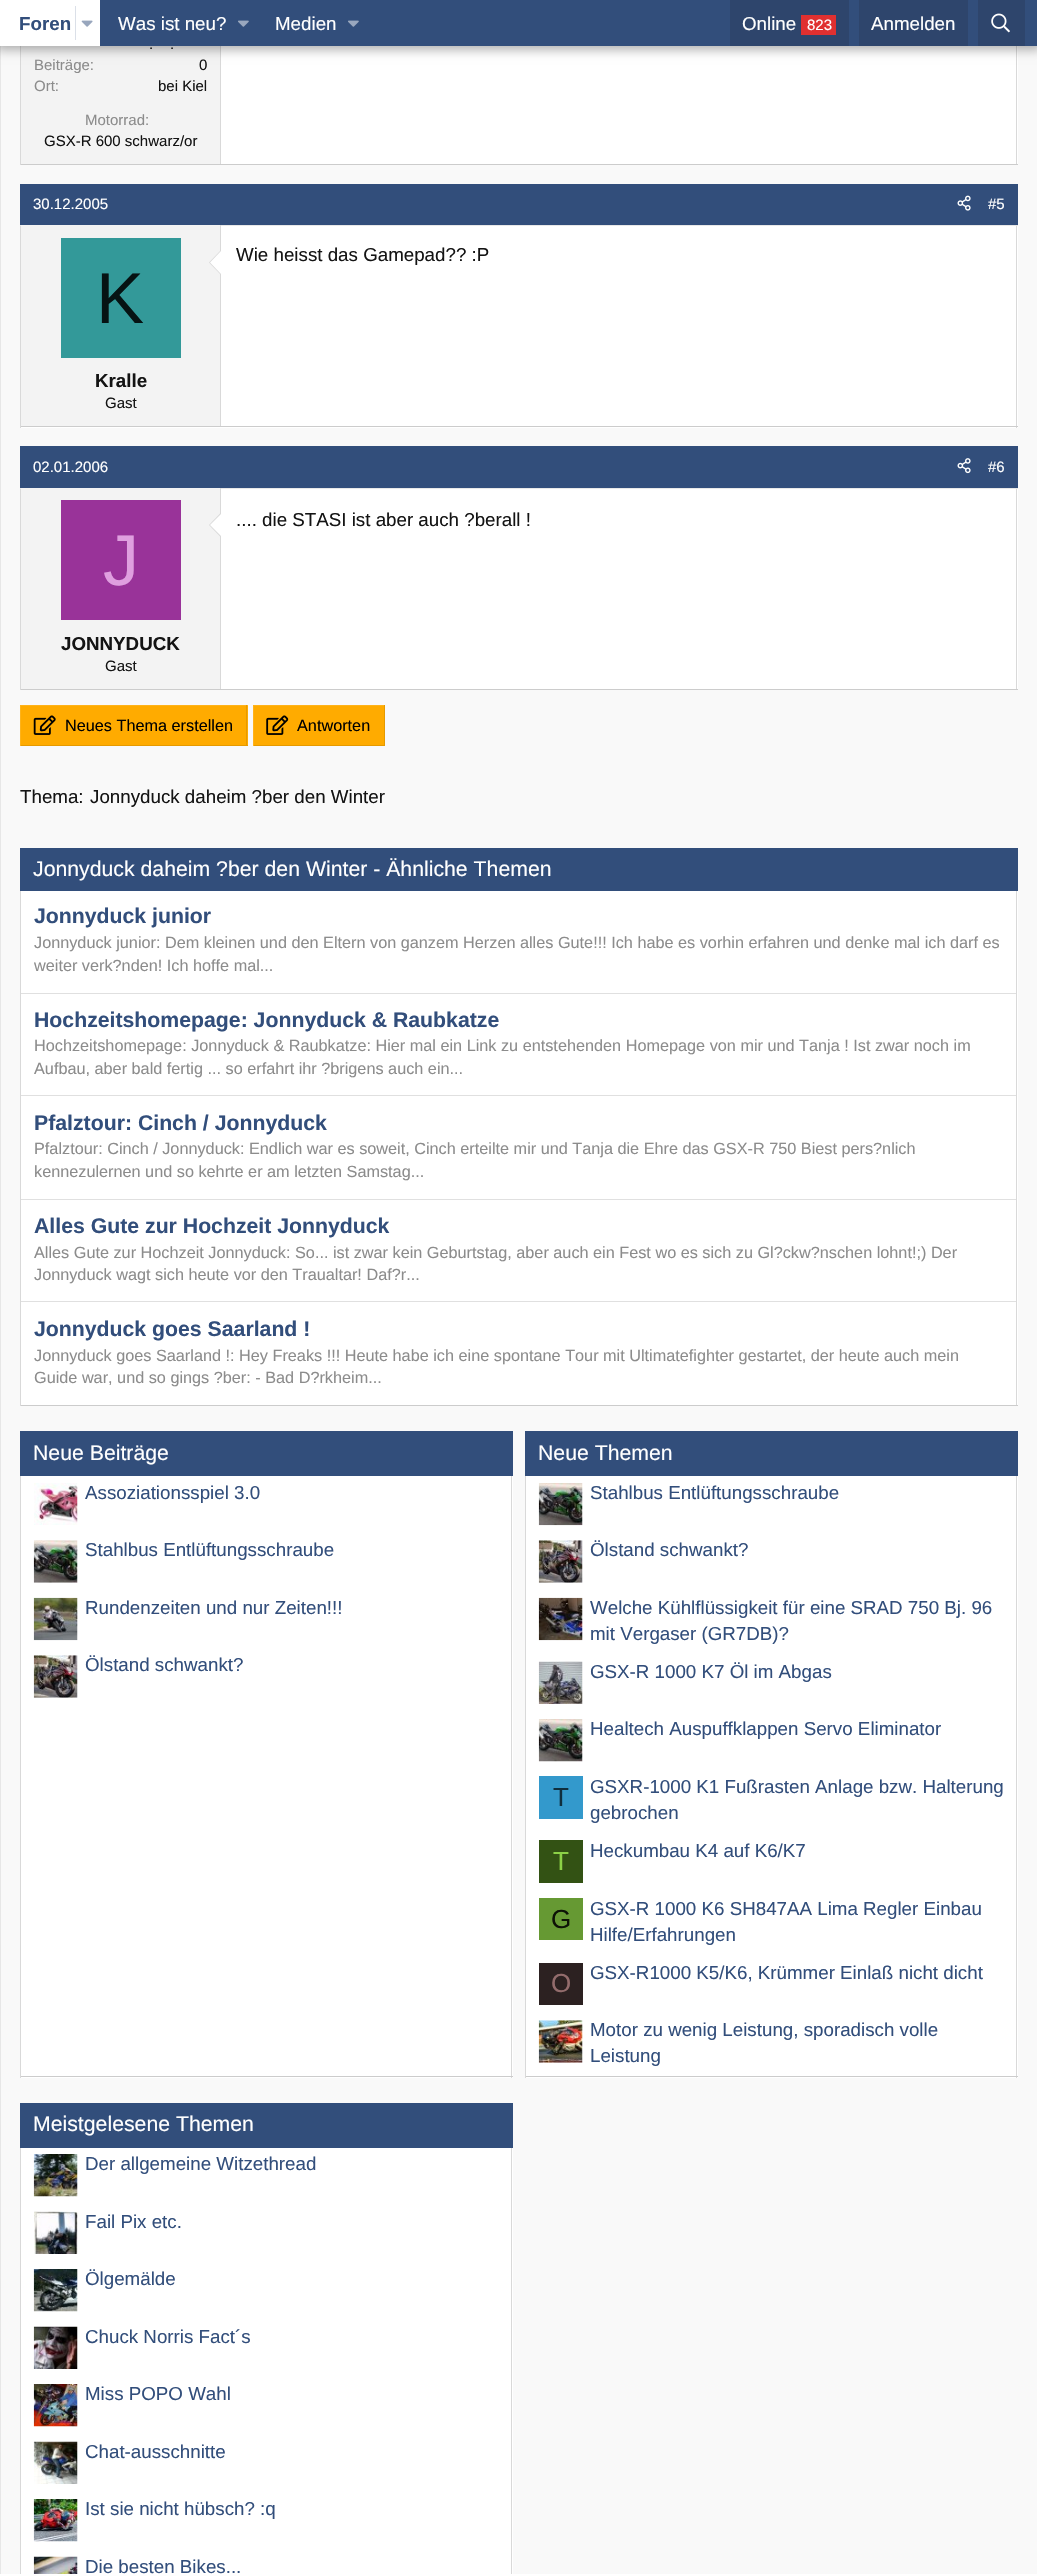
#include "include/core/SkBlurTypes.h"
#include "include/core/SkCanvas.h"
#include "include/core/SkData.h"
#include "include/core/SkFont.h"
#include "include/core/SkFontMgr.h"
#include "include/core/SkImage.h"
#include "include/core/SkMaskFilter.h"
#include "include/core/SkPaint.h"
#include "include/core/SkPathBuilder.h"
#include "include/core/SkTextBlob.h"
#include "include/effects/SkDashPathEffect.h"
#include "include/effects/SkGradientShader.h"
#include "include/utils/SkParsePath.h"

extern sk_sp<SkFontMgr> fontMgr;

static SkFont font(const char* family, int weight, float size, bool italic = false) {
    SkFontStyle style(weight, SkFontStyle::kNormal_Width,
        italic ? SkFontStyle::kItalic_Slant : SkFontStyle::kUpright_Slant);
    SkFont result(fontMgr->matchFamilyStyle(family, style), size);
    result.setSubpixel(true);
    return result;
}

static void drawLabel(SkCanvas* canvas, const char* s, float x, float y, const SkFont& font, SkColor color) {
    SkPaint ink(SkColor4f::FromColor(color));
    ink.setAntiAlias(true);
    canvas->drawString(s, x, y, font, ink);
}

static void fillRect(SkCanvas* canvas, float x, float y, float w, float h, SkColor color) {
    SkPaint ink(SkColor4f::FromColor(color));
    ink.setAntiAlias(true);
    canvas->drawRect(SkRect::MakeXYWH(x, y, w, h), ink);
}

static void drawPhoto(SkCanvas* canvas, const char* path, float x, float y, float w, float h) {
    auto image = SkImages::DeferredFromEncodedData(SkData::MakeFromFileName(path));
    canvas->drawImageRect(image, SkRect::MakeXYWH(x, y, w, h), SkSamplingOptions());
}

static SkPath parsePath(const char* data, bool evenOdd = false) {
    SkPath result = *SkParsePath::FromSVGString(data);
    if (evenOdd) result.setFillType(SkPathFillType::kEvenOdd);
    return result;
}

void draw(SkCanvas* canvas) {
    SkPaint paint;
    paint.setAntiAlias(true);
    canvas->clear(0xFFF9F9F9);
    paint.setStroke(true);
    paint.setStrokeWidth(1);
    paint.setColor(0xFFE7E7E7);
    canvas->drawRect(SkRect::MakeXYWH(0.5f, -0.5f, 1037, 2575), paint);
    fillRect(canvas, 221, 46, 797, 118, 0xFFFFFFFF);
    fillRect(canvas, 1016, 46, 1, 119, 0xFFD9D9D9);
    fillRect(canvas, 20, 164, 998, 1, 0xFFCCCCCC);
    fillRect(canvas, 20, 46, 1, 119, 0xFFD9D9D9);
    fillRect(canvas, 21, 46, 199, 118, 0xFFF3F3F3);
    fillRect(canvas, 220, 46, 1, 118, 0xFFD9D9D9);
    paint.setStroke(false);
    paint.setColor(0x4D000000);
    paint.setMaskFilter(SkMaskFilter::MakeBlur(kNormal_SkBlurStyle, 5));
    canvas->drawRect(SkRect::MakeXYWH(-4, -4, 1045, 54), paint);
    paint.setMaskFilter(nullptr);
    fillRect(canvas, 100, 0, 937, 46, 0xFF324E7B);
    fillRect(canvas, 0, 0, 100, 46, 0xFFFFFFFF);
    SkFont font1 = font("Liberation Sans", 700, 18.75f);
    drawLabel(canvas, "Foren", 19, 30, font1, 0xFF324E7B);
    fillRect(canvas, 75, 6, 1, 34, 0xFFDBE0E8);
    drawPhoto(canvas, "assets/img1.png", 81, 20, 12, 7);
    SkFont font2 = font("Liberation Sans", 400, 18.75f);
    drawLabel(canvas, "Was ist neu?", 118, 30, font2, 0xFFFFFFFF);
    drawPhoto(canvas, "assets/img2.png", 238, 20, 11, 7);
    drawLabel(canvas, "Medien", 275, 30, font2, 0xFFFFFFFF);
    drawPhoto(canvas, "assets/img2.png", 348, 20, 11, 7);
    fillRect(canvas, 730, 0, 119, 46, 0xFF2E456C);
    drawLabel(canvas, "Online", 742, 30, font2, 0xFFFFFFFF);
    fillRect(canvas, 801, 15, 35, 20, 0xFFE03030);
    SkFont font3 = font("Liberation Sans", 400, 15);
    drawLabel(canvas, "823", 807, 30, font3, 0xFFFFFFFF);
    fillRect(canvas, 859, 0, 109, 46, 0xFF2E456C);
    drawLabel(canvas, "Anmelden", 871, 30, font2, 0xFFFFFFFF);
    fillRect(canvas, 978, 0, 47, 46, 0xFF2E456C);
    drawPhoto(canvas, "assets/img3.png", 991, 13, 19, 20);
    drawLabel(canvas, ".", 149, 49, font3, 0xFF141414);
    drawLabel(canvas, ".", 170, 49, font3, 0xFF141414);
    drawLabel(canvas, "Beiträge:", 34, 70, font3, 0xFF8C8C8C);
    drawLabel(canvas, "0", 199, 70, font3, 0xFF141414);
    drawLabel(canvas, "Ort:", 34, 91, font3, 0xFF8C8C8C);
    drawLabel(canvas, "bei Kiel", 158, 91, font3, 0xFF141414);
    drawLabel(canvas, "Motorrad:", 85, 125, font3, 0xFF8C8C8C);
    drawLabel(canvas, "GSX-R 600 schwarz/or", 44, 146, font3, 0xFF141414);
    fillRect(canvas, 21, 226, 997, 202, 0xFFFFFFFF);
    fillRect(canvas, 1016, 226, 1, 202, 0xFFD9D9D9);
    fillRect(canvas, 20, 426, 998, 1, 0xFFCCCCCC);
    fillRect(canvas, 20, 226, 1, 202, 0xFFD9D9D9);
    fillRect(canvas, 20, 184, 998, 41, 0xFF324E7B);
    fillRect(canvas, 20, 225, 998, 1, 0xFFE8E8E8);
    drawLabel(canvas, "30.12.2005", 33, 209, font3, 0xFFFFFFFF);
    drawPhoto(canvas, "assets/img4.png", 957, 195, 14, 16);
    drawLabel(canvas, "#5", 988, 209, font3, 0xFFFFFFFF);
    drawLabel(canvas, "Wie heisst das Gamepad?\077 :P", 236, 261, font2, 0xFF141414);
    fillRect(canvas, 21, 225, 199, 201, 0xFFF3F3F3);
    fillRect(canvas, 220, 225, 1, 201, 0xFFD9D9D9);
    paint.setColor(0xFFD9D9D9);
    canvas->drawPath(parsePath("M221 250V275L209 262.5Z"), paint);
    paint.setColor(0xFFFFFFFF);
    canvas->drawPath(parsePath("M221 251V274L210 262.5Z"), paint);
    fillRect(canvas, 61, 238, 120, 120, 0xFF339999);
    SkFont font4 = font("Liberation Sans", 400, 72);
    drawLabel(canvas, "K", 96, 323, font4, 0xFF061313);
    drawLabel(canvas, "Kralle", 95, 387, font1, 0xFF141414);
    drawLabel(canvas, "Gast", 105, 408, font3, 0xFF141414);
    fillRect(canvas, 221, 489, 797, 200, 0xFFFFFFFF);
    fillRect(canvas, 1016, 489, 1, 201, 0xFFD9D9D9);
    fillRect(canvas, 20, 689, 998, 1, 0xFFCCCCCC);
    fillRect(canvas, 20, 489, 1, 201, 0xFFD9D9D9);
    fillRect(canvas, 20, 446, 998, 42, 0xFF324E7B);
    fillRect(canvas, 20, 488, 998, 1, 0xFFE8E8E8);
    drawLabel(canvas, "02.01.2006", 33, 472, font3, 0xFFFFFFFF);
    drawPhoto(canvas, "assets/img5.png", 957, 458, 14, 16);
    drawLabel(canvas, "#6", 988, 472, font3, 0xFFFFFFFF);
    drawLabel(canvas, ".... die STASI ist aber auch ?berall !", 236, 526, font2, 0xFF141414);
    fillRect(canvas, 21, 488, 199, 201, 0xFFF3F3F3);
    fillRect(canvas, 220, 488, 1, 201, 0xFFD9D9D9);
    paint.setColor(0xFFD9D9D9);
    canvas->drawPath(parsePath("M221 512.5V537.5L209 525Z"), paint);
    paint.setColor(0xFFFFFFFF);
    canvas->drawPath(parsePath("M221 514V536L210 525Z"), paint);
    fillRect(canvas, 61, 500, 120, 120, 0xFF993399);
    drawLabel(canvas, "J", 103, 585, font4, 0xFFDF9FDF);
    drawLabel(canvas, "JONNYDUCK", 61, 650, font1, 0xFF141414);
    drawLabel(canvas, "Gast", 105, 671, font3, 0xFF141414);
    fillRect(canvas, 21, 706, 227, 39, 0xFFFFAB00);
    fillRect(canvas, 20, 705, 228, 1, 0xFFFFB31A);
    fillRect(canvas, 246, 705, 1, 41, 0xFFE69A00);
    fillRect(canvas, 20, 745, 228, 1, 0xFFE69A00);
    fillRect(canvas, 20, 705, 1, 41, 0xFFFFB31A);
    drawPhoto(canvas, "assets/img6.png", 33, 715, 23, 20);
    SkFont font5 = font("Liberation Sans", 400, 16.25f);
    drawLabel(canvas, "Neues Thema erstellen", 65, 731, font5, 0xFF000000);
    fillRect(canvas, 254, 706, 130, 39, 0xFFFFAB00);
    fillRect(canvas, 253, 705, 132, 1, 0xFFFFB31A);
    fillRect(canvas, 384, 705, 1, 41, 0xFFE69A00);
    fillRect(canvas, 253, 745, 132, 1, 0xFFE69A00);
    fillRect(canvas, 253, 705, 1, 41, 0xFFFFB31A);
    drawPhoto(canvas, "assets/img7.png", 266, 715, 23, 20);
    drawLabel(canvas, "Antworten", 297, 731, font5, 0xFF000000);
    drawLabel(canvas, "Thema:", 20, 803, font2, 0xFF141414);
    drawLabel(canvas, "Jonnyduck daheim ?ber den Winter", 90, 803, font2, 0xFF141414);
    fillRect(canvas, 21, 891, 997, 514, 0xFFFFFFFF);
    fillRect(canvas, 1016, 891, 1, 515, 0xFFD9D9D9);
    fillRect(canvas, 20, 1405, 998, 1, 0xFFCCCCCC);
    fillRect(canvas, 20, 891, 1, 515, 0xFFD9D9D9);
    fillRect(canvas, 20, 848, 998, 43, 0xFF324E7B);
    SkFont font6 = font("Liberation Sans", 400, 21.25f);
    drawLabel(canvas, "Jonnyduck daheim ?ber den Winter - Ähnliche Themen", 33, 876, font6, 0xFFFFFFFF);
    SkFont font7 = font("Liberation Sans", 700, 21.25f);
    drawLabel(canvas, "Jonnyduck junior", 34, 923, font7, 0xFF324E7B);
    drawLabel(canvas, "Jonnyduck junior: Dem kleinen und den Eltern von ganzem Herzen alles Gute!!! Ich habe es vorhin erfahren und denke mal ich darf es", 34, 948, font5, 0xFF8C8C8C);
    drawLabel(canvas, "weiter verk?nden! Ich hoffe mal...", 34, 971, font5, 0xFF8C8C8C);
    fillRect(canvas, 21, 993, 995, 1, 0xFFE0E0E0);
    drawLabel(canvas, "Hochzeitshomepage: Jonnyduck & Raubkatze", 34, 1027, font7, 0xFF324E7B);
    drawLabel(canvas, "Hochzeitshomepage: Jonnyduck & Raubkatze: Hier mal ein Link zu entstehenden Homepage von mir und Tanja ! Ist zwar noch im", 34, 1051, font5, 0xFF8C8C8C);
    drawLabel(canvas, "Aufbau, aber bald fertig ... so erfahrt ihr ?brigens auch ein...", 34, 1074, font5, 0xFF8C8C8C);
    fillRect(canvas, 21, 1095, 995, 1, 0xFFE0E0E0);
    drawLabel(canvas, "Pfalztour: Cinch / Jonnyduck", 34, 1130, font7, 0xFF324E7B);
    drawLabel(canvas, "Pfalztour: Cinch / Jonnyduck: Endlich war es soweit, Cinch erteilte mir und Tanja die Ehre das GSX-R 750 Biest pers?nlich", 34, 1154, font5, 0xFF8C8C8C);
    drawLabel(canvas, "kennezulernen und so kehrte er am letzten Samstag...", 34, 1177, font5, 0xFF8C8C8C);
    fillRect(canvas, 21, 1199, 995, 1, 0xFFE0E0E0);
    drawLabel(canvas, "Alles Gute zur Hochzeit Jonnyduck", 34, 1233, font7, 0xFF324E7B);
    drawLabel(canvas, "Alles Gute zur Hochzeit Jonnyduck: So... ist zwar kein Geburtstag, aber auch ein Fest wo es sich zu Gl?ckw?nschen lohnt!;) Der", 34, 1258, font5, 0xFF8C8C8C);
    drawLabel(canvas, "Jonnyduck wagt sich heute vor den Traualtar! Daf?r...", 34, 1280, font5, 0xFF8C8C8C);
    fillRect(canvas, 21, 1301, 995, 1, 0xFFE0E0E0);
    drawLabel(canvas, "Jonnyduck goes Saarland !", 34, 1336, font7, 0xFF324E7B);
    drawLabel(canvas, "Jonnyduck goes Saarland !: Hey Freaks !!! Heute habe ich eine spontane Tour mit Ultimatefighter gestartet, der heute auch mein", 34, 1361, font5, 0xFF8C8C8C);
    drawLabel(canvas, "Guide war, und so gings ?ber: - Bad D?rkheim...", 34, 1383, font5, 0xFF8C8C8C);
    fillRect(canvas, 21, 1476, 492, 602, 0xFFFFFFFF);
    fillRect(canvas, 511, 1476, 1, 602, 0xFFD9D9D9);
    fillRect(canvas, 20, 2076, 493, 1, 0xFFCCCCCC);
    fillRect(canvas, 20, 1476, 1, 602, 0xFFD9D9D9);
    fillRect(canvas, 20, 1431, 493, 45, 0xFF324E7B);
    drawLabel(canvas, "Neue Beiträge", 33, 1460, font6, 0xFFFFFFFF);
    drawPhoto(canvas, "assets/img8.png", 34, 1483, 44, 42);
    drawLabel(canvas, "Assoziationsspiel 3.0", 85, 1499, font2, 0xFF324E7B);
    drawPhoto(canvas, "assets/img9.png", 33, 1540, 45, 43);
    drawLabel(canvas, "Stahlbus Entlüftungsschraube", 85, 1556, font2, 0xFF324E7B);
    drawPhoto(canvas, "assets/img10.png", 33, 1597, 45, 44);
    drawLabel(canvas, "Rundenzeiten und nur Zeiten!!!", 85, 1614, font2, 0xFF324E7B);
    drawPhoto(canvas, "assets/img11.png", 33, 1655, 45, 43);
    drawLabel(canvas, "Ölstand schwankt?", 85, 1671, font2, 0xFF324E7B);
    fillRect(canvas, 526, 1476, 492, 602, 0xFFFFFFFF);
    fillRect(canvas, 1016, 1476, 1, 602, 0xFFD9D9D9);
    fillRect(canvas, 525, 2076, 493, 1, 0xFFCCCCCC);
    fillRect(canvas, 525, 1476, 1, 602, 0xFFD9D9D9);
    fillRect(canvas, 525, 1431, 493, 45, 0xFF324E7B);
    drawLabel(canvas, "Neue Themen", 538, 1460, font6, 0xFFFFFFFF);
    drawPhoto(canvas, "assets/img12.png", 538, 1483, 45, 43);
    drawLabel(canvas, "Stahlbus Entlüftungsschraube", 590, 1499, font2, 0xFF324E7B);
    drawPhoto(canvas, "assets/img11.png", 538, 1540, 45, 43);
    drawLabel(canvas, "Ölstand schwankt?", 590, 1556, font2, 0xFF324E7B);
    drawPhoto(canvas, "assets/img13.png", 538, 1597, 45, 44);
    drawLabel(canvas, "Welche Kühlflüssigkeit für eine SRAD 750 Bj. 96", 590, 1614, font2, 0xFF324E7B);
    drawLabel(canvas, "mit Vergaser (GR7DB)?", 590, 1640, font2, 0xFF324E7B);
    drawPhoto(canvas, "assets/img14.png", 538, 1661, 45, 43);
    drawLabel(canvas, "GSX-R 1000 K7 Öl im Abgas", 590, 1678, font2, 0xFF324E7B);
    drawPhoto(canvas, "assets/img15.png", 538, 1719, 45, 43);
    drawLabel(canvas, "Healtech Auspuffklappen Servo Eliminator", 590, 1735, font2, 0xFF324E7B);
    fillRect(canvas, 539, 1776, 44, 43, 0xFF3399CC);
    SkFont font8 = font("Liberation Sans", 400, 26);
    drawLabel(canvas, "T", 553, 1806, font8, 0xFF0F2E3D);
    drawLabel(canvas, "GSXR-1000 K1 Fußrasten Anlage bzw. Halterung", 590, 1793, font2, 0xFF324E7B);
    drawLabel(canvas, "gebrochen", 590, 1819, font2, 0xFF324E7B);
    drawLabel(canvas, "Heckumbau K4 auf K6/K7", 590, 1857, font2, 0xFF324E7B);
    fillRect(canvas, 539, 1840, 44, 43, 0xFF335214);
    drawLabel(canvas, "T", 553, 1870, font8, 0xFF8CD147);
    fillRect(canvas, 539, 1898, 44, 42, 0xFF669933);
    drawLabel(canvas, "G", 551, 1928, font8, 0xFF0D1306);
    drawLabel(canvas, "GSX-R 1000 K6 SH847AA Lima Regler Einbau", 590, 1915, font2, 0xFF324E7B);
    drawLabel(canvas, "Hilfe/Erfahrungen", 590, 1941, font2, 0xFF324E7B);
    fillRect(canvas, 539, 1963, 44, 42, 0xFF2C2121);
    drawLabel(canvas, "O", 551, 1992, font8, 0xFF936C6C);
    drawLabel(canvas, "GSX-R1000 K5/K6, Krümmer Einlaß nicht dicht", 590, 1979, font2, 0xFF324E7B);
    drawPhoto(canvas, "assets/img16.png", 538, 2020, 45, 43);
    drawLabel(canvas, "Motor zu wenig Leistung, sporadisch volle", 590, 2036, font2, 0xFF324E7B);
    drawLabel(canvas, "Leistung", 590, 2062, font2, 0xFF324E7B);
    fillRect(canvas, 21, 2148, 492, 426, 0xFFFFFFFF);
    fillRect(canvas, 511, 2148, 1, 426, 0xFFD9D9D9);
    fillRect(canvas, 20, 2148, 1, 426, 0xFFD9D9D9);
    fillRect(canvas, 20, 2103, 493, 45, 0xFF324E7B);
    drawLabel(canvas, "Meistgelesene Themen", 33, 2131, font6, 0xFFFFFFFF);
    drawPhoto(canvas, "assets/img17.png", 33, 2154, 45, 43);
    drawLabel(canvas, "Der allgemeine Witzethread", 85, 2170, font2, 0xFF324E7B);
    drawPhoto(canvas, "assets/img18.png", 34, 2211, 44, 43);
    drawLabel(canvas, "Fail Pix etc.", 85, 2228, font2, 0xFF324E7B);
    drawPhoto(canvas, "assets/img19.png", 33, 2269, 45, 43);
    drawLabel(canvas, "Ölgemälde", 85, 2285, font2, 0xFF324E7B);
    drawPhoto(canvas, "assets/img20.png", 33, 2326, 45, 43);
    drawLabel(canvas, "Chuck Norris Fact´s", 85, 2343, font2, 0xFF324E7B);
    drawPhoto(canvas, "assets/img21.png", 33, 2384, 45, 43);
    drawLabel(canvas, "Miss POPO Wahl", 85, 2400, font2, 0xFF324E7B);
    drawPhoto(canvas, "assets/img22.png", 33, 2441, 45, 43);
    drawLabel(canvas, "Chat-ausschnitte", 85, 2458, font2, 0xFF324E7B);
    drawPhoto(canvas, "assets/img23.png", 33, 2499, 45, 43);
    drawLabel(canvas, "Ist sie nicht hübsch? :q", 85, 2515, font2, 0xFF324E7B);
    drawPhoto(canvas, "assets/img24.png", 33, 2556, 45, 18);
    drawLabel(canvas, "Die besten Bikes...", 85, 2573, font2, 0xFF324E7B);
}
